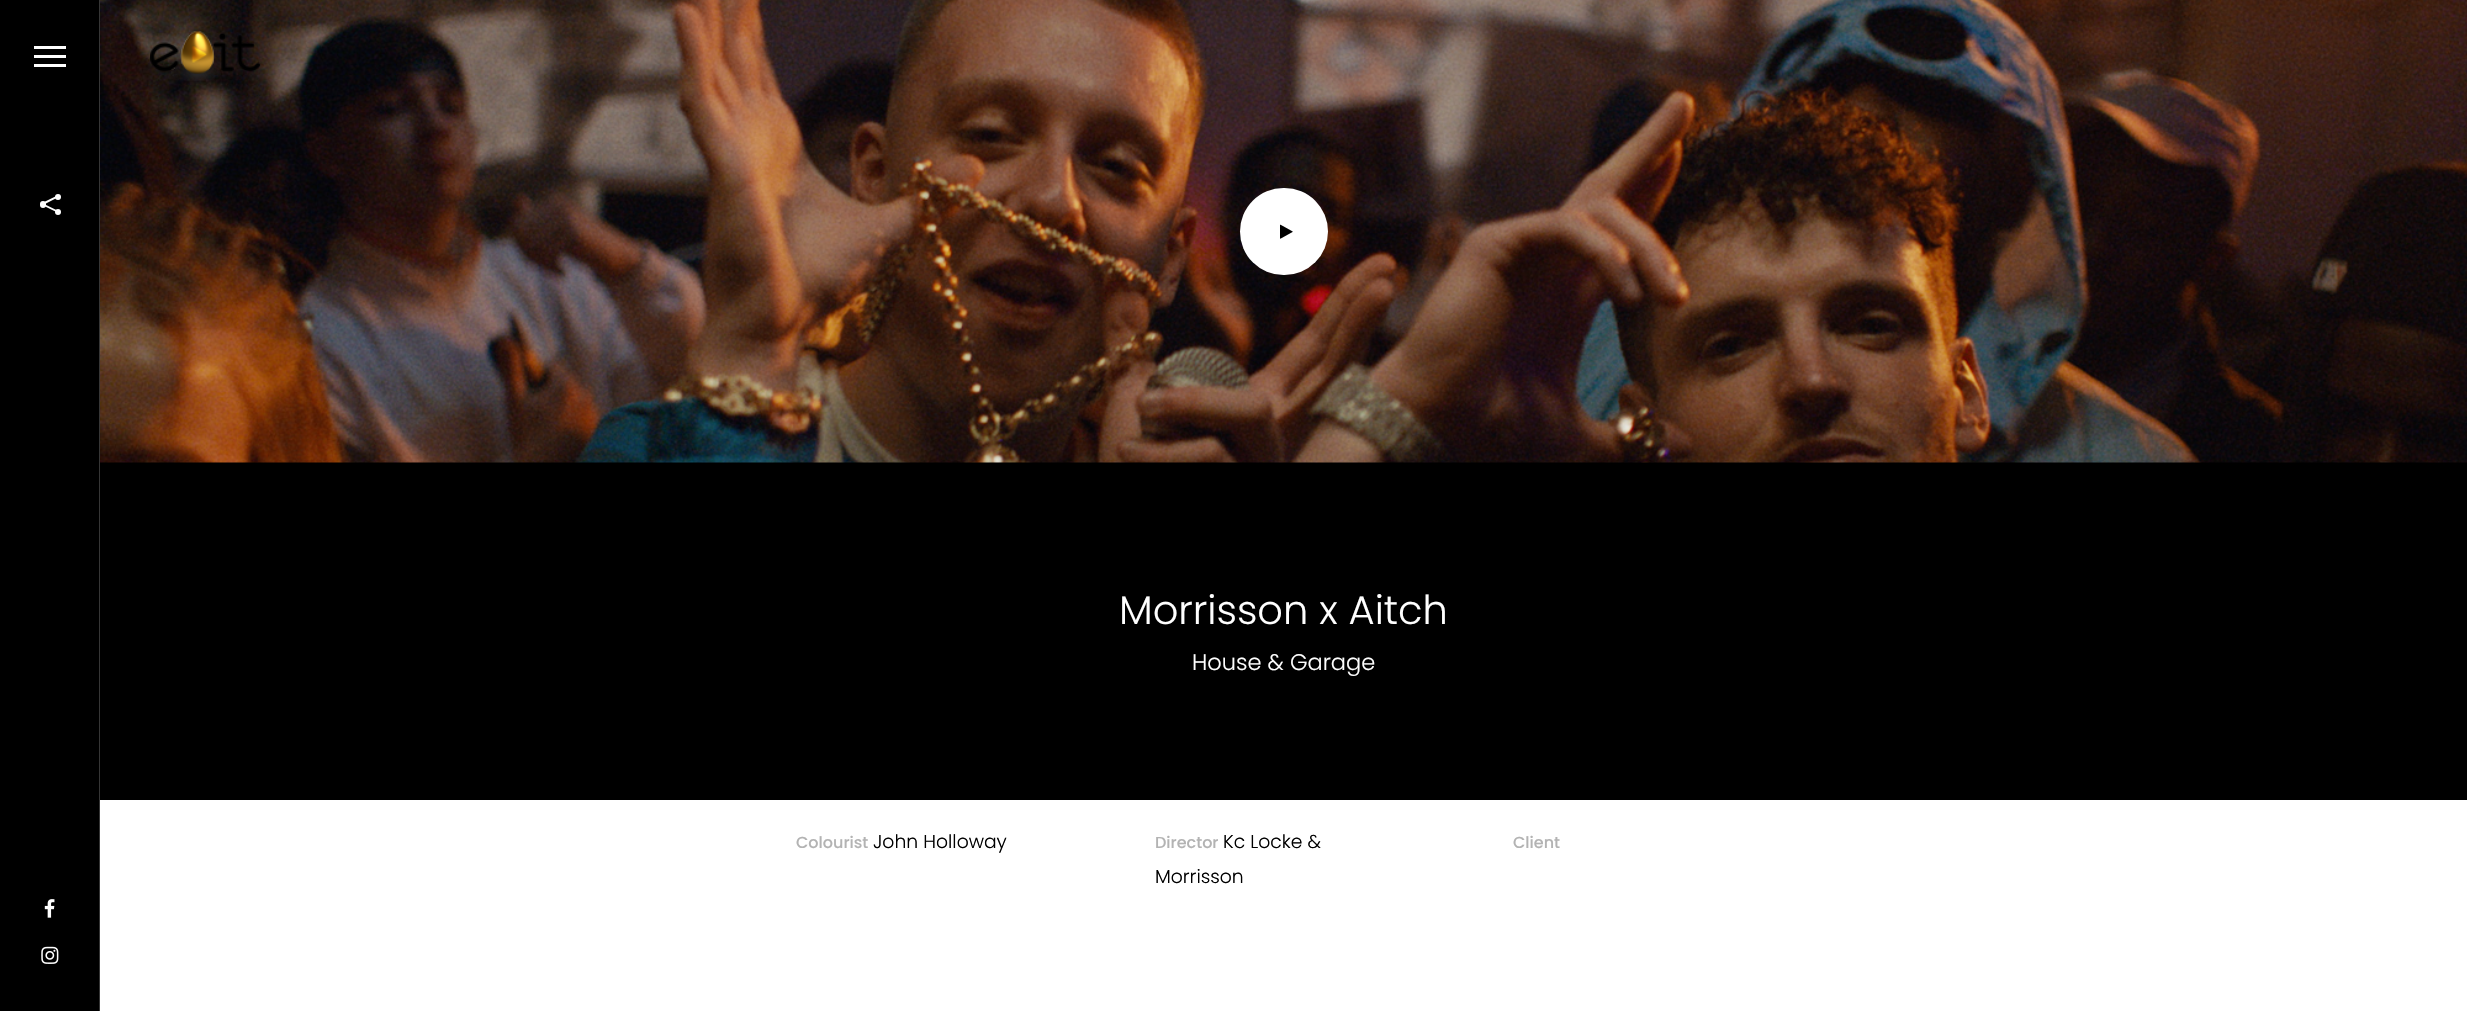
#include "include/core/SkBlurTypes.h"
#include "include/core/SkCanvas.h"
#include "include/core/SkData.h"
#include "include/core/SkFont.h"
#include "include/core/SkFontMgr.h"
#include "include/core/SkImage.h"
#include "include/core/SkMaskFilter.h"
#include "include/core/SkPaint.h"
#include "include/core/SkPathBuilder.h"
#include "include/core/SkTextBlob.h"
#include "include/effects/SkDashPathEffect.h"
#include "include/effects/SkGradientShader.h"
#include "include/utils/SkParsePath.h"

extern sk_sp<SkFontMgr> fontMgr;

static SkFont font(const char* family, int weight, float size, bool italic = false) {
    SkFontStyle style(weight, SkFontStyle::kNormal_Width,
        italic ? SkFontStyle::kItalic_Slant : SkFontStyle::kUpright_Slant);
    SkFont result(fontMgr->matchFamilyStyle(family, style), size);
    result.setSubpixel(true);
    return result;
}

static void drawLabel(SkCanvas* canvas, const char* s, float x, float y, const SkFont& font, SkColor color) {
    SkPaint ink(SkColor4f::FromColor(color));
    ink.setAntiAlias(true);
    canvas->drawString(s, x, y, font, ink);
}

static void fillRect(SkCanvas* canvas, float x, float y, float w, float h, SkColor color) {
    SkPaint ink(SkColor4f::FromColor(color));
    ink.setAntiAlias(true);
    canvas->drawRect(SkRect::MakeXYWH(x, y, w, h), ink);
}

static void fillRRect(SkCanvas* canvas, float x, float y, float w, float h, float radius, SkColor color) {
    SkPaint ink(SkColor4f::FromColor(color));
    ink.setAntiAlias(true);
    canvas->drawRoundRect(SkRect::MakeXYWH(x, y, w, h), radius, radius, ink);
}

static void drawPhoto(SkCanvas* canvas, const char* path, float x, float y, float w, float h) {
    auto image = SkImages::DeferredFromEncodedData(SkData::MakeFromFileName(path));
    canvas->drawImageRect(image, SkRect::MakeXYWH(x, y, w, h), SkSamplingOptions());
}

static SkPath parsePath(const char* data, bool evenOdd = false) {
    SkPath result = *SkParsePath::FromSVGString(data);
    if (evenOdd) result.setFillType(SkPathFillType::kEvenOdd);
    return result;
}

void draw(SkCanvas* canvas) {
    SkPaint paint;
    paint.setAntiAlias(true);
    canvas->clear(0xFFFFFFFF);
    fillRect(canvas, 0, 0, 99, 1011, 0xFF000000);
    fillRect(canvas, 99, 0, 1, 1011, 0xFF363636);
    fillRect(canvas, 34, 55, 32, 3, 0xFFFFFFFF);
    fillRect(canvas, 34, 46, 32, 3, 0xFFFFFFFF);
    fillRect(canvas, 34, 64, 32, 3, 0xFFFFFFFF);
    fillRect(canvas, 100, 462, 2367, 338, 0xFF000000);
    drawPhoto(canvas, "assets/img4.png", 100, 0, 2367, 463);
    drawPhoto(canvas, "assets/img1.png", 150, 31, 111, 50);
    fillRRect(canvas, 40, 201, 6, 7, 3, 0xFFFFFFFF);
    paint.setColor(0xFFFFFFFF);
    canvas->drawCircle(58, 197, 3, paint);
    canvas->drawCircle(58, 212, 3, paint);
    canvas->drawPath(parsePath("M44 204L59.5 211.5L58.5 213L43 205.5Z"), paint);
    canvas->drawPath(parsePath("M43 202.5L58.5 195L59.5 196.5L44 204.5Z"), paint);
    drawPhoto(canvas, "assets/img2.png", 44, 899, 11, 19);
    drawPhoto(canvas, "assets/img3.png", 41, 946, 18, 18);
    fillRRect(canvas, 1240, 188, 88, 87, 43.5f, 0xFFFFFFFF);
    drawPhoto(canvas, "assets/img5.png", 1280, 224, 13, 15);
    SkFont font1 = font("Poppins", 300, 40);
    drawLabel(canvas, "Morrisson x Aitch", 1119, 624, font1, 0xFFFFFFFF);
    SkFont font2 = font("Poppins", 300, 22.5f);
    drawLabel(canvas, "House & Garage", 1192, 670, font2, 0xFFFFFFFF);
    SkFont font3 = font("Poppins", 500, 16);
    drawLabel(canvas, "Colourist", 796, 848, font3, 0xFFB3B3B3);
    SkFont font4 = font("Poppins", 300, 18.75f);
    drawLabel(canvas, "John Holloway", 873, 848, font4, 0xFF000000);
    drawLabel(canvas, "Director", 1155, 848, font3, 0xFFB3B3B3);
    drawLabel(canvas, "Kc Locke &", 1223, 848, font4, 0xFF000000);
    drawLabel(canvas, "Morrisson", 1155, 883, font4, 0xFF000000);
    drawLabel(canvas, "Client", 1513, 848, font3, 0xFFB3B3B3);
}
